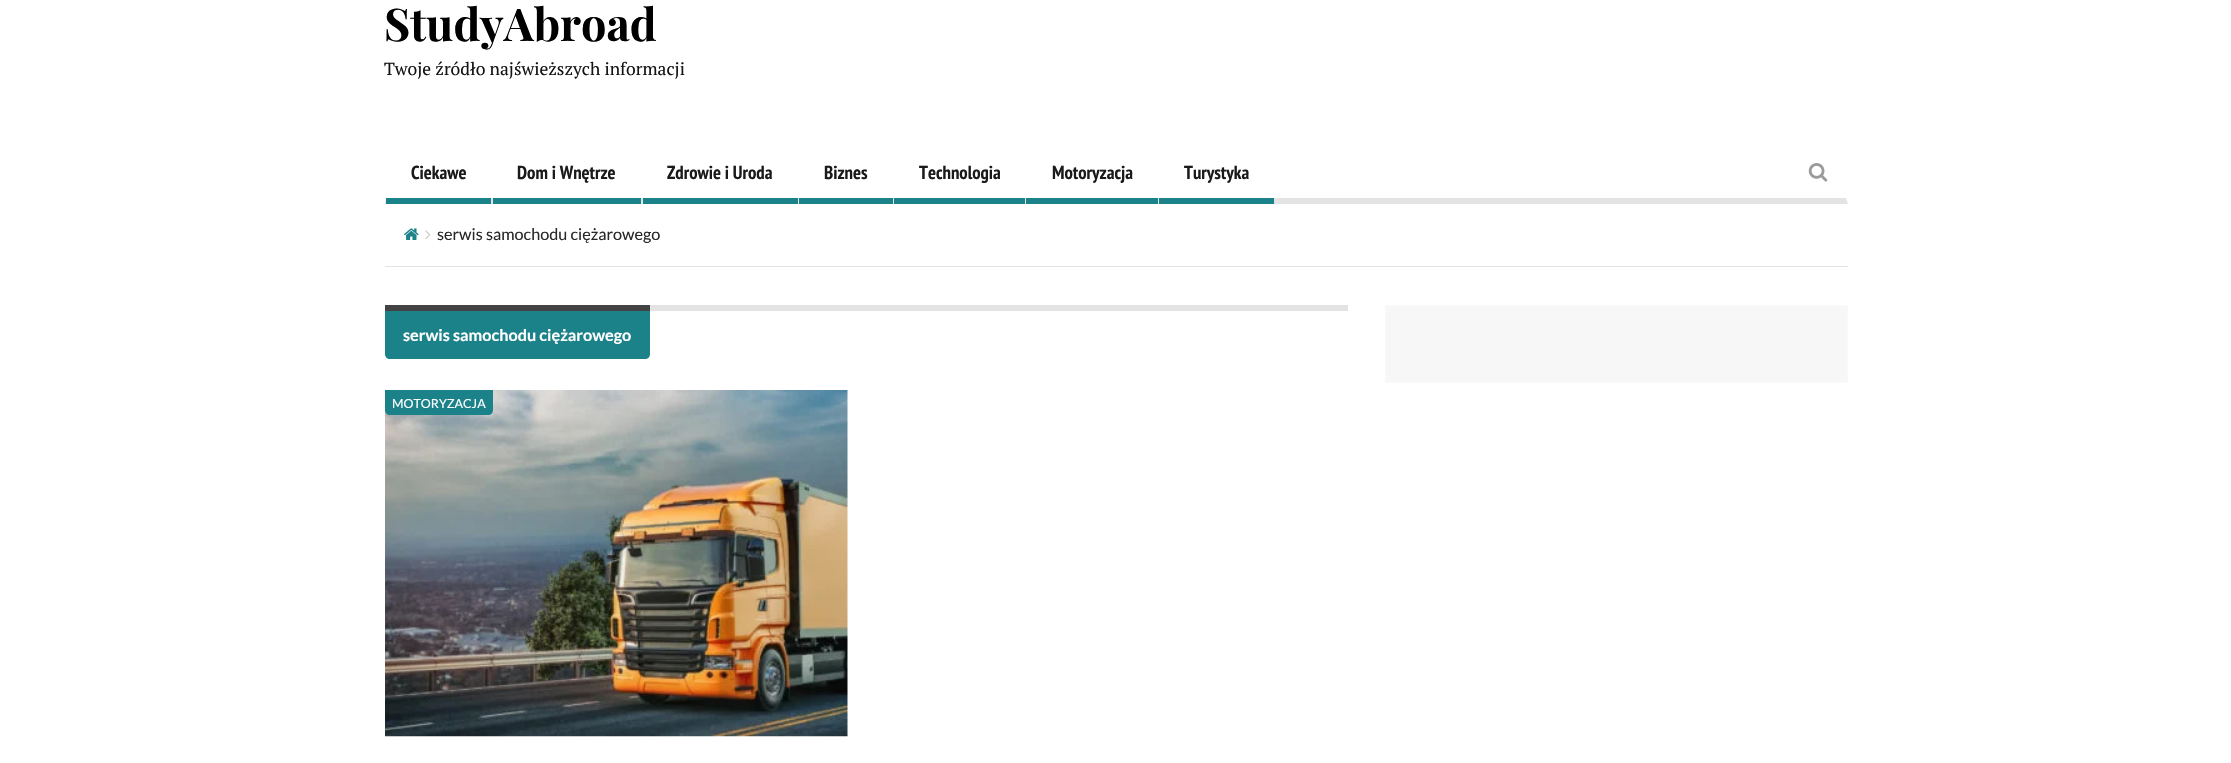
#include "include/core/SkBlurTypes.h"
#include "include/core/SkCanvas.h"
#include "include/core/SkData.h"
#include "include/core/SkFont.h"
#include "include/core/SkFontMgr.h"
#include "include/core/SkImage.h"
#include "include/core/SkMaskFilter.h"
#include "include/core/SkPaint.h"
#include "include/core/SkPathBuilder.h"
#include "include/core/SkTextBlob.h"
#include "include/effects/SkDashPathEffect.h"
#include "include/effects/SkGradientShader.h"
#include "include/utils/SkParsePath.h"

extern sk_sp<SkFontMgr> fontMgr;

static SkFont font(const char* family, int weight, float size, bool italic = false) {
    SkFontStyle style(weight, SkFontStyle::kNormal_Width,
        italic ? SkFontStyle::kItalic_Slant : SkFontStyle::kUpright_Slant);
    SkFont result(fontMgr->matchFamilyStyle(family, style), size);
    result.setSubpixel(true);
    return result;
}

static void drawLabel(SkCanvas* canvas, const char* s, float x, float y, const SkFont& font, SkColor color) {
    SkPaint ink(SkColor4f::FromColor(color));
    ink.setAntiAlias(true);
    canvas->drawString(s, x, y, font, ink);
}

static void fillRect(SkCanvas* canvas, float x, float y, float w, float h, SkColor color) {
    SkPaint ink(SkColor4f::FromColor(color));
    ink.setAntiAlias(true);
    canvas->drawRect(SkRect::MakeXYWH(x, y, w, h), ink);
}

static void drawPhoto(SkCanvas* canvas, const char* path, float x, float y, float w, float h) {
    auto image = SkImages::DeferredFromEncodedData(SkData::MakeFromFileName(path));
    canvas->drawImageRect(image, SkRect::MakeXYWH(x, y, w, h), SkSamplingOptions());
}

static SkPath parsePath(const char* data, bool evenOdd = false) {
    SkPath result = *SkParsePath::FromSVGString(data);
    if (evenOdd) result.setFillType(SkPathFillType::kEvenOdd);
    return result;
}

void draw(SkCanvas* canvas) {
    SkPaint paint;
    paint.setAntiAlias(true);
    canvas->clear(0xFFFFFFFF);
    SkFont font1 = font("Playfair Display", 700, 45);
    drawLabel(canvas, "StudyAbroad", 384, 41, font1, 0xFF000000);
    SkFont font2 = font("PT Serif", 400, 17.5f);
    drawLabel(canvas, "Twoje źródło najświeższych informacji", 384, 75, font2, 0xFF141414);
    paint.setColor(0xFFE3E3E3);
    canvas->drawPath(parsePath("M1848 204H385L386 198H1846Z"), paint);
    fillRect(canvas, 386, 198, 105, 6, 0xFF1B8289);
    SkFont font3 = font("PT Sans Narrow", 700, 18.75f);
    drawLabel(canvas, "Ciekawe", 411, 179, font3, 0xFF1A1A1A);
    fillRect(canvas, 493, 198, 148, 6, 0xFF1B8289);
    drawLabel(canvas, "Dom i Wnętrze", 517, 179, font3, 0xFF1A1A1A);
    fillRect(canvas, 643, 198, 155, 6, 0xFF1B8289);
    drawLabel(canvas, "Zdrowie i Uroda", 667, 179, font3, 0xFF1A1A1A);
    fillRect(canvas, 799, 198, 94, 6, 0xFF1B8289);
    drawLabel(canvas, "Biznes", 824, 179, font3, 0xFF1A1A1A);
    fillRect(canvas, 894, 198, 131, 6, 0xFF1B8289);
    drawLabel(canvas, "Technologia", 919, 179, font3, 0xFF1A1A1A);
    fillRect(canvas, 1026, 198, 132, 6, 0xFF1B8289);
    drawLabel(canvas, "Motoryzacja", 1052, 179, font3, 0xFF1A1A1A);
    fillRect(canvas, 1159, 198, 115, 6, 0xFF1B8289);
    drawLabel(canvas, "Turystyka", 1184, 179, font3, 0xFF1A1A1A);
    drawPhoto(canvas, "assets/img1.png", 1808, 163, 20, 19);
    fillRect(canvas, 385, 266, 1463, 1, 0xFFE3E3E3);
    drawPhoto(canvas, "assets/img2.png", 404, 228, 15, 12);
    drawPhoto(canvas, "assets/img3.png", 425, 230, 6, 10);
    SkFont font4 = font("Lato", 400, 16.25f);
    drawLabel(canvas, "serwis samochodu ciężarowego", 437, 240, font4, 0xFF282828);
    fillRect(canvas, 650, 305, 698, 6, 0xFFE3E3E3);
    paint.setColor(0xFF1B8289);
    canvas->drawPath(parsePath("M385 305H650V354C650 357 648 359 645 359H390C387 359 385 357 385 354Z"), paint);
    fillRect(canvas, 385, 305, 265, 6, 0xFF434343);
    SkFont font5 = font("Lato", 700, 16.25f);
    drawLabel(canvas, "serwis samochodu ciężarowego", 403, 341, font5, 0xFFFFFFFF);
    drawPhoto(canvas, "assets/img4.png", 385, 390, 463, 347);
    canvas->drawPath(parsePath("M385 390H493V410C493 413 491 415 488 415H390C387 415 385 413 385 410Z"), paint);
    SkFont font6 = font("Lato", 400, 12.5f);
    drawLabel(canvas, "MOTORYZACJA", 392, 408, font6, 0xFFFFFFFF);
    paint.setColor(0xFFF7F7F7);
    canvas->drawRect(SkRect::MakeXYWH(1385.5f, 305.5f, 462, 77), paint);
    paint.setStroke(true);
    paint.setStrokeWidth(1);
    paint.setColor(0xFFF9F9F9);
    canvas->drawRect(SkRect::MakeXYWH(1385.5f, 305.5f, 462, 77), paint);
}
